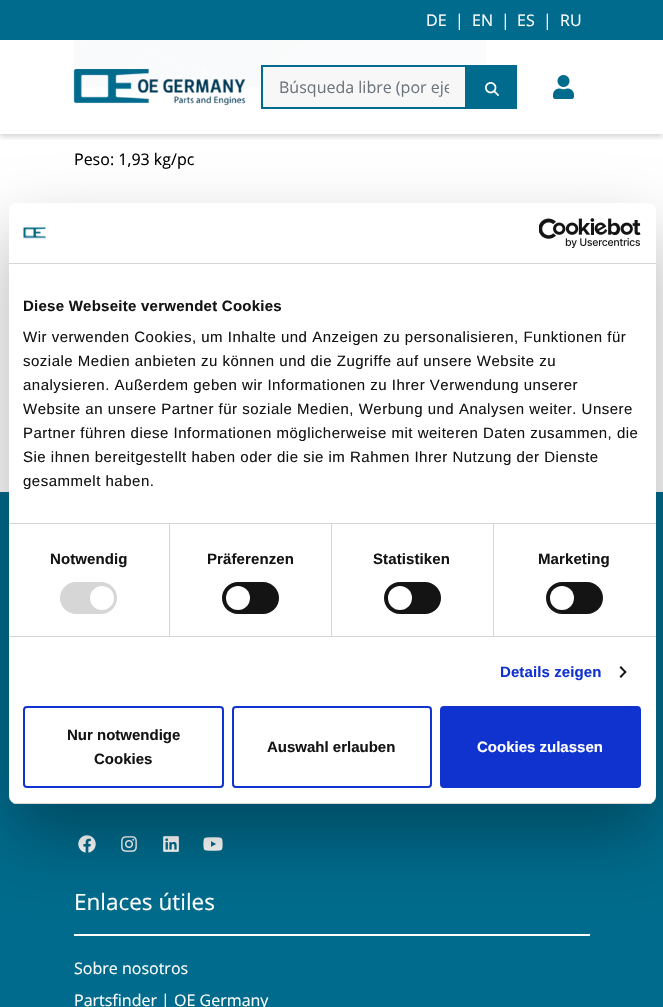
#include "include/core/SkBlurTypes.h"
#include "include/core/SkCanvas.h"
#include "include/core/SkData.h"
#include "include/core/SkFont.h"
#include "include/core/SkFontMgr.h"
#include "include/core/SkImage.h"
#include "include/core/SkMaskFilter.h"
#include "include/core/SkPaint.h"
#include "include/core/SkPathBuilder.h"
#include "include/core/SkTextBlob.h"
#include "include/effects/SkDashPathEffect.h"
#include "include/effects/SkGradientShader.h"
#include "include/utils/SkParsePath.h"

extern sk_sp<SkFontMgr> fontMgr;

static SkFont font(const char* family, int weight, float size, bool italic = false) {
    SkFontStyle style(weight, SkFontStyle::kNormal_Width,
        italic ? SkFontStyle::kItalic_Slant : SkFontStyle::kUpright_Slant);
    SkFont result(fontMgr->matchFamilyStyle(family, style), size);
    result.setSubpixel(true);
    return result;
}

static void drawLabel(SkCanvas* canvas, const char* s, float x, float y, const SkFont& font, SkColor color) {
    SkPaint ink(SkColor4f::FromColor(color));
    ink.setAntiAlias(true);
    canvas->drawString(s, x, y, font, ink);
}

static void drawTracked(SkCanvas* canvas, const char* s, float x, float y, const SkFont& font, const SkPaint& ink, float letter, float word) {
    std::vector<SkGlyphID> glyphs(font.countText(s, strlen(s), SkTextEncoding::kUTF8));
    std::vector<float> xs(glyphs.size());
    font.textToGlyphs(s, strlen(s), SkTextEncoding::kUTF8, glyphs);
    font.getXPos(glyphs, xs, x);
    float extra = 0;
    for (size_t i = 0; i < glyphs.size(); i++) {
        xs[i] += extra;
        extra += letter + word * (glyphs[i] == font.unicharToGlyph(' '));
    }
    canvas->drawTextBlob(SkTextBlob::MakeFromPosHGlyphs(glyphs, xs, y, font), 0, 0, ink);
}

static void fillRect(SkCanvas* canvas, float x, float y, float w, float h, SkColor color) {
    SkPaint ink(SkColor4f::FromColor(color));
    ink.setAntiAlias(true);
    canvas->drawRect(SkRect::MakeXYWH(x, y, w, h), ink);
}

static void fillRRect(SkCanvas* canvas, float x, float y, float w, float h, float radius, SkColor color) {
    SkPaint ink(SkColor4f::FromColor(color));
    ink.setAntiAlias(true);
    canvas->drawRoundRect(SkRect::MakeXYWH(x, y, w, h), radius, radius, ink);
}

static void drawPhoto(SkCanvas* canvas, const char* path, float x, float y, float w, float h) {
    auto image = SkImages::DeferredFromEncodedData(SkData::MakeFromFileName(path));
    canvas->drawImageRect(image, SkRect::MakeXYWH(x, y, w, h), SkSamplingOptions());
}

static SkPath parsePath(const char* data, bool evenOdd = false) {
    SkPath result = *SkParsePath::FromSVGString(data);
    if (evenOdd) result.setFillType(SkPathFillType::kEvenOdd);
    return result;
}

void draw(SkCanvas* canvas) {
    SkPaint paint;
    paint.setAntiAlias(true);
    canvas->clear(0xFFFFFFFF);
    drawPhoto(canvas, "assets/img4.png", 74, 40, 412, 48);
    canvas->save();
    canvas->clipRect(SkRect::MakeXYWH(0, 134, 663, 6));
    paint.setColor(0x33000000);
    paint.setMaskFilter(SkMaskFilter::MakeBlur(kNormal_SkBlurStyle, 3));
    canvas->drawRect(SkRect::MakeXYWH(0, 2, 663, 134), paint);
    paint.setMaskFilter(nullptr);
    canvas->restore();
    fillRect(canvas, 0, 0, 663, 40, 0xFF006B8C);
    SkFont font1 = font("Open Sans", 400, 16);
    drawLabel(canvas, "DE", 426, 26, font1, 0xFFFFFFFF);
    drawLabel(canvas, "|", 455, 26, font1, 0xFFFFFFFF);
    drawLabel(canvas, "EN", 472, 26, font1, 0xFFFFFFFF);
    drawLabel(canvas, "|", 501, 26, font1, 0xFFFFFFFF);
    drawLabel(canvas, "ES", 517, 26, font1, 0xFFFFFFFF);
    drawLabel(canvas, "|", 543, 26, font1, 0xFFFFFFFF);
    drawLabel(canvas, "RU", 560, 26, font1, 0xFFFFFFFF);
    drawPhoto(canvas, "assets/img1.png", 73, 69, 173, 36);
    paint.setColor(0xFFF7F7F7);
    canvas->drawRect(SkRect::MakeXYWH(262, 66, 204, 42), paint);
    paint.setStroke(true);
    paint.setStrokeWidth(2);
    paint.setColor(0xFF006B8C);
    canvas->drawRect(SkRect::MakeXYWH(262, 66, 204, 42), paint);
    canvas->save();
    canvas->clipRect(SkRect::MakeXYWH(279, 76, 170, 22));
    drawLabel(canvas, "Búsqueda libre (por eje", 279, 93, font1, 0xFF6C757D);
    canvas->restore();
    fillRect(canvas, 467, 65, 50, 44, 0xFF006B8C);
    drawPhoto(canvas, "assets/img2.png", 485, 82, 14, 14);
    drawPhoto(canvas, "assets/img3.png", 553, 75, 21, 24);
    drawLabel(canvas, "Peso: 1,93 kg/pc", 74, 165, font1, 0xFF000000);
    fillRect(canvas, 0, 492, 663, 515, 0xFF006B8C);
    drawPhoto(canvas, "assets/img5.png", 78, 835, 18, 18);
    drawPhoto(canvas, "assets/img6.png", 121, 836, 16, 16);
    drawPhoto(canvas, "assets/img7.png", 163, 836, 16, 16);
    drawPhoto(canvas, "assets/img8.png", 203, 837, 20, 14);
    SkFont font2 = font("Open Sans", 400, 22.5f);
    drawLabel(canvas, "Enlaces útiles", 74, 910, font2, 0xFFFFFFFF);
    fillRect(canvas, 74, 934, 516, 2, 0xFFFFFFFF);
    drawLabel(canvas, "Sobre nosotros", 74, 974, font1, 0xFFFFFFFF);
    drawLabel(canvas, "Partsfinder | OE Germany", 74, 1006, font1, 0xFFFFFFFF);
    paint.setStroke(false);
    paint.setColor(0x4D000000);
    paint.setMaskFilter(SkMaskFilter::MakeBlur(kNormal_SkBlurStyle, 34));
    canvas->drawRoundRect(SkRect::MakeXYWH(9, 235, 647, 601), 8, 8, paint);
    paint.setMaskFilter(nullptr);
    fillRRect(canvas, 9, 203, 647, 601, 8, 0xFFFFFFFF);
    fillRect(canvas, 9, 263, 647, 1, 0xFFD6D6D6);
    drawPhoto(canvas, "assets/img9.png", 23, 226, 23, 13);
    drawPhoto(canvas, "assets/img10.png", 539, 218, 102, 30);
    fillRect(canvas, 9, 523, 647, 1, 0xFFD6D6D6);
    SkFont font3 = font("Liberation Sans", 700, 15);
    paint.setColor(0xFF141414);
    drawTracked(canvas, "Diese Webseite verwendet Cookies", 23, 311, font3, paint, 0.25f, 0);
    SkFont font4 = font("Liberation Sans", 400, 15);
    drawTracked(canvas, "Wir verwenden Cookies, um Inhalte und Anzeigen zu personalisieren, Funktionen für", 23, 342, font4, paint, 0.5f, 0);
    drawTracked(canvas, "soziale Medien anbieten zu können und die Zugriffe auf unsere Website zu", 23, 366, font4, paint, 0.5f, 0);
    drawTracked(canvas, "analysieren. Außerdem geben wir Informationen zu Ihrer Verwendung unserer", 23, 390, font4, paint, 0.5f, 0);
    drawTracked(canvas, "Website an unsere Partner für soziale Medien, Werbung und Analysen weiter. Unsere", 23, 414, font4, paint, 0.5f, 0);
    drawTracked(canvas, "Partner führen diese Informationen möglicherweise mit weiteren Daten zusammen, die", 23, 438, font4, paint, 0.5f, 0);
    drawTracked(canvas, "Sie ihnen bereitgestellt haben oder die sie im Rahmen Ihrer Nutzung der Dienste", 23, 462, font4, paint, 0.5f, 0);
    drawTracked(canvas, "gesammelt haben.", 23, 486, font4, paint, 0.5f, 0);
    fillRect(canvas, 9, 636, 647, 1, 0xFFD6D6D6);
    fillRect(canvas, 169, 524, 1, 112, 0xFFD6D6D6);
    drawTracked(canvas, "Notwendig", 50, 564, font3, paint, 0.1f, 0);
    fillRRect(canvas, 60, 582, 57, 32, 16, 0xFFD6D6D6);
    paint.setColor(0xFFFFFFFF);
    canvas->drawCircle(102, 598, 12, paint);
    fillRect(canvas, 331, 524, 1, 112, 0xFFD6D6D6);
    paint.setColor(0xFF141414);
    drawTracked(canvas, "Präferenzen", 207, 564, font3, paint, 0.1f, 0);
    fillRRect(canvas, 222, 582, 57, 32, 16, 0xFF141414);
    paint.setColor(0xFFFFFFFF);
    canvas->drawCircle(238, 598, 12, paint);
    fillRect(canvas, 493, 524, 1, 112, 0xFFD6D6D6);
    paint.setColor(0xFF141414);
    drawTracked(canvas, "Statistiken", 373, 564, font3, paint, 0.1f, 0);
    fillRRect(canvas, 384, 582, 57, 32, 16, 0xFF141414);
    paint.setColor(0xFFFFFFFF);
    canvas->drawCircle(400, 598, 12, paint);
    paint.setColor(0xFF141414);
    drawTracked(canvas, "Marketing", 538, 564, font3, paint, 0.1f, 0);
    fillRRect(canvas, 546, 582, 57, 32, 16, 0xFF141414);
    paint.setColor(0xFFFFFFFF);
    canvas->drawCircle(562, 598, 12, paint);
    paint.setColor(0xFF1032CF);
    drawTracked(canvas, "Details zeigen", 500, 677, font3, paint, 0.1f, 0);
    paint.setColor(0xFF141414);
    canvas->drawPath(parsePath("M621 666L626.5 672L625.5 673.5L619.5 667.5Z"), paint);
    canvas->drawPath(parsePath("M625.5 670.5L626.5 672L621 678L619.5 676.5Z"), paint);
    canvas->save();
    canvas->clipPath(parsePath("M17 203H648C652.5 203 656 206.5 656 211V796C656 800.5 652.5 804 648 804H17C12.5 804 9 800.5 9 796V211C9 206.5 12.5 203 17 203Z"), true);
    fillRect(canvas, 9, 803, 647, 1, 0xFFD6D6D6);
    canvas->restore();
    paint.setStroke(true);
    paint.setColor(0xFF1032CF);
    canvas->drawRoundRect(SkRect::MakeXYWH(24, 707, 199, 80), 3, 3, paint);
    drawLabel(canvas, "Nur notwendige", 67, 740, font3, 0xFF141414);
    drawLabel(canvas, "Cookies", 94, 764, font3, 0xFF141414);
    canvas->drawRoundRect(SkRect::MakeXYWH(233, 707, 198, 80), 3, 3, paint);
    drawLabel(canvas, "Auswahl erlauben", 267, 752, font3, 0xFF141414);
    paint.setStroke(false);
    canvas->drawRoundRect(SkRect::MakeXYWH(441, 707, 199, 80), 3, 3, paint);
    paint.setStroke(true);
    canvas->drawRoundRect(SkRect::MakeXYWH(441, 707, 199, 80), 3, 3, paint);
    drawLabel(canvas, "Cookies zulassen", 477, 752, font3, 0xFFFFFFFF);
}
